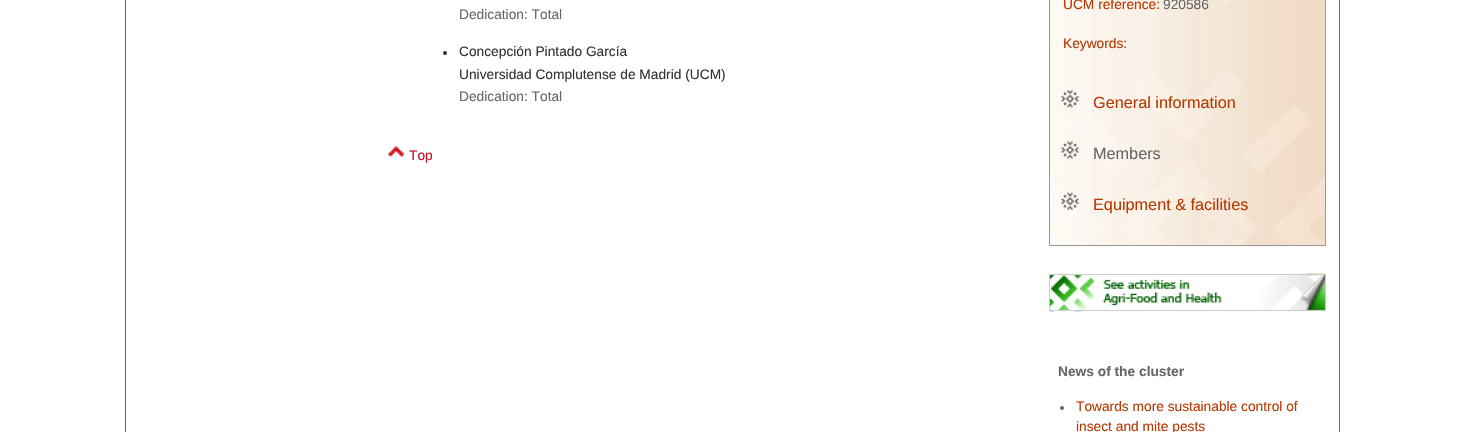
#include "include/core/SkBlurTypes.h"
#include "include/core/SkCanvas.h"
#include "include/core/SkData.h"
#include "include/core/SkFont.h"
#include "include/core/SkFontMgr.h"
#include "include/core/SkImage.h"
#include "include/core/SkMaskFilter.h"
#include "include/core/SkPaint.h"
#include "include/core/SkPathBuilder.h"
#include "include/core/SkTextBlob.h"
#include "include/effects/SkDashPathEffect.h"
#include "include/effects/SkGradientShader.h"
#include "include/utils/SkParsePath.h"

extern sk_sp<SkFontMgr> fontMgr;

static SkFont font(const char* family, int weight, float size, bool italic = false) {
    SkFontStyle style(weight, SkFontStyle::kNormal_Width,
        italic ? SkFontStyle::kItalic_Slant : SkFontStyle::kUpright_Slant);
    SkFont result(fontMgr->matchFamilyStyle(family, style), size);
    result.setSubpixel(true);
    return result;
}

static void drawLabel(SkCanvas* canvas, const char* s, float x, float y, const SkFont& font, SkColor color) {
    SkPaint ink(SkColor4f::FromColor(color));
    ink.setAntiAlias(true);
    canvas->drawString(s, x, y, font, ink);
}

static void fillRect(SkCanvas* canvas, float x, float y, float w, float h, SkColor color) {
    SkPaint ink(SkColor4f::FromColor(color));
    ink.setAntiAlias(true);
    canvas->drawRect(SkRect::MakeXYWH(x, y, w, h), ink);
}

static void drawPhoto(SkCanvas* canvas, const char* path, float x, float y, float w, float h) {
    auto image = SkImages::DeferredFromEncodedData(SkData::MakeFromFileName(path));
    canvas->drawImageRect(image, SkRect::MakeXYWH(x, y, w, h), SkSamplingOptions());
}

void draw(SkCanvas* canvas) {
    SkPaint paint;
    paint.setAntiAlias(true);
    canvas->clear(0xFFFFFFFF);
    fillRect(canvas, 1339, 0, 1, 432, 0xFF666666);
    fillRect(canvas, 125, 0, 1, 432, 0xFF666666);
    SkFont font1 = font("Liberation Sans", 400, 13.75f);
    drawLabel(canvas, "Dedication: Total", 459, 19, font1, 0xFF666666);
    paint.setColor(0xFF333333);
    canvas->drawCircle(445, 53, 2, paint);
    drawLabel(canvas, "Concepción Pintado García", 459, 56, font1, 0xFF333333);
    drawLabel(canvas, "Universidad Complutense de Madrid (UCM)", 459, 79, font1, 0xFF333333);
    drawLabel(canvas, "Dedication: Total", 459, 101, font1, 0xFF666666);
    drawPhoto(canvas, "assets/img1.png", 387, 146, 19, 14);
    drawLabel(canvas, "Top", 409, 160, font1, 0xFFBC0B28);
    drawPhoto(canvas, "assets/img2.png", 1050, 0, 275, 247);
    paint.setStroke(true);
    paint.setStrokeWidth(1);
    paint.setColor(0xFF999999);
    canvas->drawRect(SkRect::MakeXYWH(1049.5f, -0.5f, 276, 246), paint);
    drawLabel(canvas, "UCM reference:", 1063, 9, font1, 0xFFB73801);
    drawLabel(canvas, "920586", 1163, 9, font1, 0xFF666666);
    drawLabel(canvas, "Keywords:", 1063, 48, font1, 0xFFB73801);
    drawPhoto(canvas, "assets/img3.png", 1061, 90, 18, 18);
    SkFont font2 = font("Liberation Sans", 400, 16.25f);
    drawLabel(canvas, "General information", 1093, 108, font2, 0xFFB73801);
    drawPhoto(canvas, "assets/img4.png", 1061, 141, 18, 18);
    drawLabel(canvas, "Members", 1093, 159, font2, 0xFF666666);
    drawPhoto(canvas, "assets/img5.png", 1061, 192, 18, 18);
    drawLabel(canvas, "Equipment & facilities", 1093, 210, font2, 0xFFB73801);
    drawPhoto(canvas, "assets/img6.png", 1050, 273, 275, 39);
    paint.setColor(0xFFCCCCCC);
    canvas->drawRect(SkRect::MakeXYWH(1049.5f, 274.5f, 276, 36), paint);
    SkFont font3 = font("Liberation Sans", 700, 13.75f);
    drawLabel(canvas, "News of the cluster", 1058, 376, font3, 0xFF666666);
    paint.setStroke(false);
    paint.setColor(0xFF666666);
    canvas->drawCircle(1062, 408, 2, paint);
    drawLabel(canvas, "Towards more sustainable control of", 1076, 411, font1, 0xFFB73801);
    drawLabel(canvas, "insect and mite pests", 1076, 431, font1, 0xFFB73801);
}
